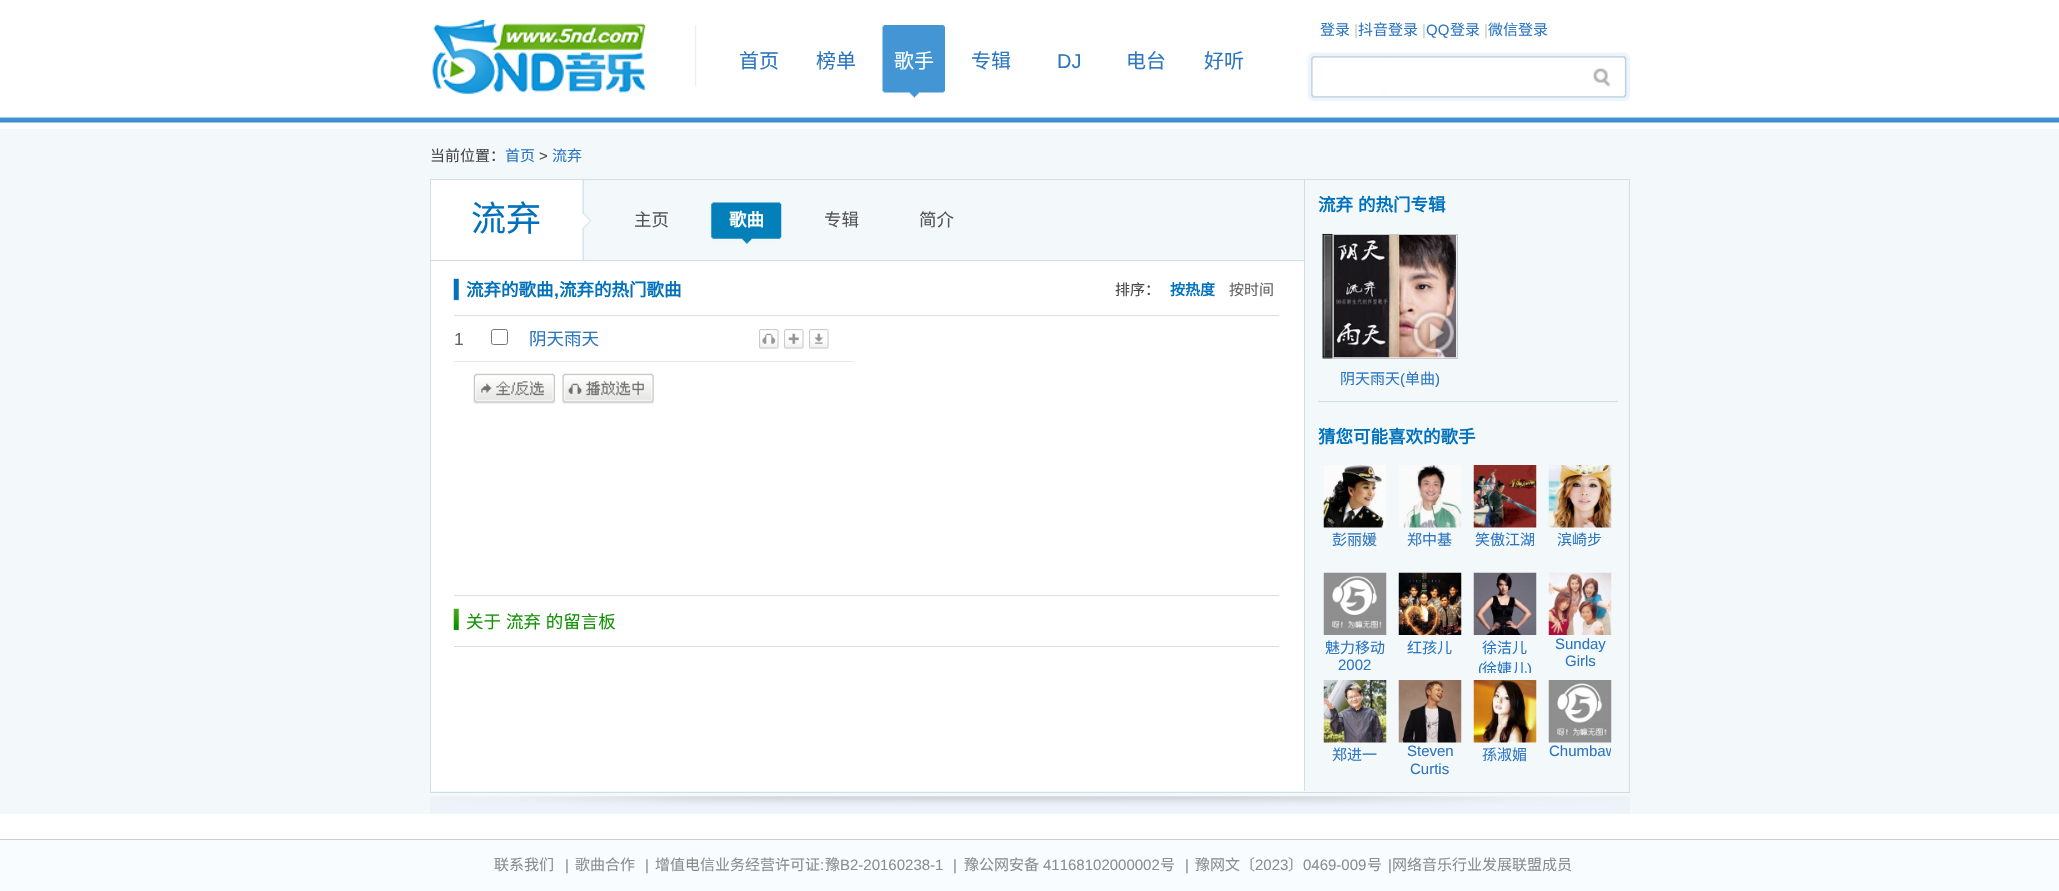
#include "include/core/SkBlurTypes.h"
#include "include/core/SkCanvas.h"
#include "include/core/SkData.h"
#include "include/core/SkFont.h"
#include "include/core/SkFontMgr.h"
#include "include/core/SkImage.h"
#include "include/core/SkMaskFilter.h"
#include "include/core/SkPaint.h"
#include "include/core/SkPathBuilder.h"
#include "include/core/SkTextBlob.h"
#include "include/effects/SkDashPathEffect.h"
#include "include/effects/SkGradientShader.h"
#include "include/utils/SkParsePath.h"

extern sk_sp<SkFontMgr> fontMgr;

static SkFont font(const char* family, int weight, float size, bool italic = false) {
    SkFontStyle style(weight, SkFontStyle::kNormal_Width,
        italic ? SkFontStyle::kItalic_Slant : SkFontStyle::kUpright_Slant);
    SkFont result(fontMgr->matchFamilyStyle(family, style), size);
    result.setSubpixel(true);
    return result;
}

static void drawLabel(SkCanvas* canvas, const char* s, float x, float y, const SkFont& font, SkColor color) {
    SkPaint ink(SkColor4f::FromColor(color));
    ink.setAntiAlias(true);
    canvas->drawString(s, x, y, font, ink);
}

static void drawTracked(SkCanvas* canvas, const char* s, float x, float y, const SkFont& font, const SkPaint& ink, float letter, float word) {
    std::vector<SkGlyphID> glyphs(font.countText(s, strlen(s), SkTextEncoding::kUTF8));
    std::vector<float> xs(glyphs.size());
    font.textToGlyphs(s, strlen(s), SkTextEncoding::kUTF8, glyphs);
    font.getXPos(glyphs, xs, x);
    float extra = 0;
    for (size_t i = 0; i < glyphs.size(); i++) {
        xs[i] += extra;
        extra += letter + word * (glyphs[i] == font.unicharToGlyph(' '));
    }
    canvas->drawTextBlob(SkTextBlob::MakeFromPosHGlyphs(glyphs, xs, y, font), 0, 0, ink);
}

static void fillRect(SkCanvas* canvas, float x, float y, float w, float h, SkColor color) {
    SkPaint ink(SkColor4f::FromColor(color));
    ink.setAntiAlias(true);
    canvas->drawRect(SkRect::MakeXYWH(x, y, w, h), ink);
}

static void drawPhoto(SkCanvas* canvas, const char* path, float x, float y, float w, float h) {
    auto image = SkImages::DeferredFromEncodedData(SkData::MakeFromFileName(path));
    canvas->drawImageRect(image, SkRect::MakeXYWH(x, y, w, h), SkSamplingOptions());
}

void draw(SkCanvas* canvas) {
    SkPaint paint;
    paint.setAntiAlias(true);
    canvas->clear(0xFFFFFFFF);
    drawPhoto(canvas, "assets/img1.png", 0, 117, 2059, 6);
    drawPhoto(canvas, "assets/img2.png", 432, 20, 214, 74);
    SkFont font1 = font("Noto Sans CJK SC", 400, 15);
    drawLabel(canvas, "登录", 1320, 35, font1, 0xFF2C76C0);
    SkFont font2 = font("Liberation Sans", 400, 15);
    drawLabel(canvas, "|", 1354, 35, font2, 0xFFCCCCCC);
    drawLabel(canvas, "抖音登录", 1358, 35, font1, 0xFF2C76C0);
    drawLabel(canvas, "|", 1422, 35, font2, 0xFFCCCCCC);
    drawLabel(canvas, "QQ", 1426, 35, font2, 0xFF2C76C0);
    drawLabel(canvas, "登录", 1450, 35, font1, 0xFF2C76C0);
    drawLabel(canvas, "|", 1484, 35, font2, 0xFFCCCCCC);
    drawLabel(canvas, "微信登录", 1488, 35, font1, 0xFF2C76C0);
    drawPhoto(canvas, "assets/img3.png", 1307, 52, 323, 50);
    drawPhoto(canvas, "assets/img4.png", 695, 25, 2, 62);
    SkFont font3 = font("Noto Sans CJK SC", 400, 20);
    drawLabel(canvas, "首页", 739, 68, font3, 0xFF2C76C0);
    drawLabel(canvas, "榜单", 816, 68, font3, 0xFF2C76C0);
    drawPhoto(canvas, "assets/img5.png", 882, 25, 63, 73);
    drawLabel(canvas, "歌手", 894, 68, font3, 0xFFFFFFFF);
    drawLabel(canvas, "专辑", 971, 68, font3, 0xFF2C76C0);
    SkFont font4 = font("Liberation Sans", 400, 20);
    drawLabel(canvas, "DJ", 1057, 68, font4, 0xFF2C76C0);
    drawLabel(canvas, "电台", 1126, 68, font3, 0xFF2C76C0);
    drawLabel(canvas, "好听", 1204, 68, font3, 0xFF2C76C0);
    fillRect(canvas, 0, 129, 2059, 685, 0xFFF3F8FB);
    drawPhoto(canvas, "assets/img6.png", 430, 796, 1200, 18);
    drawLabel(canvas, "当前位置：", 430, 161, font1, 0xFF464646);
    drawLabel(canvas, "首页", 505, 161, font1, 0xFF2C76C0);
    drawLabel(canvas, ">", 539, 161, font2, 0xFF464646);
    drawLabel(canvas, "流弃", 552, 161, font1, 0xFF2C76C0);
    paint.setStroke(true);
    paint.setStrokeWidth(1);
    paint.setColor(0xFFD1DEE4);
    canvas->drawRect(SkRect::MakeXYWH(430.5f, 179.5f, 1199, 613), paint);
    fillRect(canvas, 431, 261, 873, 530, 0xFFFFFFFF);
    fillRect(canvas, 1304, 180, 1, 611, 0xFFD1DEE4);
    fillRect(canvas, 431, 260, 873, 1, 0xFFD1DEE4);
    fillRect(canvas, 431, 180, 151, 80, 0xFFFFFFFF);
    drawPhoto(canvas, "assets/img7.png", 582, 180, 10, 80);
    SkFont font5 = font("Noto Sans CJK SC", 400, 35);
    drawLabel(canvas, "流弃", 471, 231, font5, 0xFF0071BC);
    SkFont font6 = font("Noto Sans CJK SC", 400, 17.5f);
    drawLabel(canvas, "主页", 634, 226, font6, 0xFF555555);
    drawPhoto(canvas, "assets/img8.png", 711, 202, 71, 42);
    SkFont font7 = font("Noto Sans CJK SC", 700, 17.5f);
    drawLabel(canvas, "歌曲", 729, 226, font7, 0xFFFFFFFF);
    drawLabel(canvas, "专辑", 824, 226, font6, 0xFF555555);
    drawLabel(canvas, "简介", 919, 226, font6, 0xFF555555);
    fillRect(canvas, 454, 315, 825, 1, 0xFFDDDDDD);
    drawPhoto(canvas, "assets/img9.png", 453, 278, 6, 23);
    drawLabel(canvas, "流弃的歌曲", 466, 296, font7, 0xFF0071BC);
    SkFont font8 = font("Liberation Sans", 700, 17.5f);
    drawLabel(canvas, ",", 554, 296, font8, 0xFF0071BC);
    drawLabel(canvas, "流弃的热门歌曲", 559, 296, font7, 0xFF0071BC);
    drawLabel(canvas, "排序：", 1115, 295, font1, 0xFF464646);
    SkFont font9 = font("Noto Sans CJK SC", 700, 15);
    drawLabel(canvas, "按热度", 1170, 295, font9, 0xFF0071BC);
    drawLabel(canvas, "按时间", 1229, 295, font1, 0xFF636363);
    fillRect(canvas, 454, 361, 400, 1, 0xFFE8E8E8);
    SkFont font10 = font("Liberation Sans", 400, 17.5f);
    drawLabel(canvas, "1", 454, 345, font10, 0xFF636363);
    paint.setColor(0xFF767676);
    canvas->drawRoundRect(SkRect::MakeXYWH(491.5f, 329.5f, 16, 15), 2, 2, paint);
    drawLabel(canvas, "阴天雨天", 529, 345, font6, 0xFF2C76C0);
    drawPhoto(canvas, "assets/img10.png", 759, 329, 20, 20);
    drawPhoto(canvas, "assets/img11.png", 784, 329, 20, 20);
    drawPhoto(canvas, "assets/img12.png", 809, 329, 20, 20);
    drawPhoto(canvas, "assets/img13.png", 473, 373, 82, 31);
    drawPhoto(canvas, "assets/img14.png", 562, 373, 92, 31);
    fillRect(canvas, 454, 595, 825, 1, 0xFFDDDDDD);
    fillRect(canvas, 454, 646, 825, 1, 0xFFDDDDDD);
    drawPhoto(canvas, "assets/img15.png", 453, 608, 6, 23);
    paint.setStroke(false);
    paint.setColor(0xFF139305);
    drawTracked(canvas, "关于 流弃 的留言板", 466, 628, font6, paint, 0, 1);
    paint.setColor(0xFF0071BC);
    drawTracked(canvas, "流弃 的热门专辑", 1318, 211, font7, paint, 0, 1);
    drawPhoto(canvas, "assets/img16.png", 1322, 233, 11, 126);
    paint.setStroke(true);
    paint.setColor(0xFFC8C8C8);
    canvas->drawRect(SkRect::MakeXYWH(1333.5f, 234.5f, 124, 124), paint);
    drawPhoto(canvas, "assets/img17.png", 1333, 235, 124, 123);
    drawPhoto(canvas, "assets/img18.png", 1412, 309, 45, 47);
    drawLabel(canvas, "阴天雨天", 1340, 384, font1, 0xFF2C76C0);
    drawLabel(canvas, "(", 1400, 384, font2, 0xFF2C76C0);
    drawLabel(canvas, "单曲", 1405, 384, font1, 0xFF2C76C0);
    drawLabel(canvas, ")", 1435, 384, font2, 0xFF2C76C0);
    fillRect(canvas, 1318, 401, 300, 1, 0xFFD1DEE4);
    drawLabel(canvas, "猜您可能喜欢的歌手", 1318, 443, font7, 0xFF0071BC);
    drawPhoto(canvas, "assets/img19.png", 1323, 465, 63, 63);
    drawLabel(canvas, "彭丽媛", 1332, 545, font1, 0xFF2C76C0);
    drawPhoto(canvas, "assets/img20.png", 1399, 465, 63, 63);
    drawLabel(canvas, "郑中基", 1407, 545, font1, 0xFF2C76C0);
    drawPhoto(canvas, "assets/img21.png", 1473, 465, 64, 63);
    drawLabel(canvas, "笑傲江湖", 1475, 545, font1, 0xFF2C76C0);
    drawPhoto(canvas, "assets/img22.png", 1548, 465, 64, 63);
    drawLabel(canvas, "滨崎步", 1557, 545, font1, 0xFF2C76C0);
    drawPhoto(canvas, "assets/img23.png", 1323, 572, 64, 63);
    drawLabel(canvas, "魅力移动", 1325, 653, font1, 0xFF2C76C0);
    drawLabel(canvas, "2002", 1338, 670, font2, 0xFF2C76C0);
    drawPhoto(canvas, "assets/img24.png", 1398, 572, 64, 63);
    drawLabel(canvas, "红孩儿", 1407, 653, font1, 0xFF2C76C0);
    drawPhoto(canvas, "assets/img25.png", 1473, 572, 64, 63);
    drawLabel(canvas, "徐洁儿", 1482, 653, font1, 0xFF2C76C0);
    canvas->save();
    canvas->clipRect(SkRect::MakeXYWH(1474, 635, 62, 38));
    drawLabel(canvas, "(", 1478, 674, font2, 0xFF2C76C0);
    drawLabel(canvas, "徐婕儿", 1482, 674, font1, 0xFF2C76C0);
    drawLabel(canvas, ")", 1527, 674, font2, 0xFF2C76C0);
    canvas->restore();
    drawPhoto(canvas, "assets/img26.png", 1548, 572, 64, 63);
    drawLabel(canvas, "Sunday", 1555, 649, font2, 0xFF2C76C0);
    drawLabel(canvas, "Girls", 1565, 666, font2, 0xFF2C76C0);
    drawPhoto(canvas, "assets/img27.png", 1323, 680, 64, 63);
    drawLabel(canvas, "郑进一", 1332, 760, font1, 0xFF2C76C0);
    drawPhoto(canvas, "assets/img28.png", 1398, 680, 64, 63);
    drawLabel(canvas, "Steven", 1407, 756, font2, 0xFF2C76C0);
    drawLabel(canvas, "Curtis", 1410, 774, font2, 0xFF2C76C0);
    drawPhoto(canvas, "assets/img29.png", 1473, 680, 64, 63);
    drawLabel(canvas, "孫淑媚", 1482, 760, font1, 0xFF2C76C0);
    drawPhoto(canvas, "assets/img30.png", 1548, 680, 64, 63);
    canvas->save();
    canvas->clipRect(SkRect::MakeXYWH(1549, 743, 62, 37));
    drawLabel(canvas, "Chumbaw", 1549, 756, font2, 0xFF2C76C0);
    canvas->restore();
    fillRect(canvas, 0, 840, 2059, 51, 0xFFF8FCFF);
    fillRect(canvas, 0, 839, 2059, 1, 0xFFCCCCCC);
    drawLabel(canvas, "联系我们", 494, 870, font1, 0xFF8D8D8D);
    drawLabel(canvas, "|", 565, 870, font2, 0xFF8D8D8D);
    drawLabel(canvas, "歌曲合作", 575, 870, font1, 0xFF8D8D8D);
    drawLabel(canvas, "|", 645, 870, font2, 0xFF8D8D8D);
    drawLabel(canvas, "增值电信业务经营许可证", 655, 870, font1, 0xFF8D8D8D);
    drawLabel(canvas, ":", 820, 870, font2, 0xFF8D8D8D);
    drawLabel(canvas, "豫", 825, 870, font1, 0xFF8D8D8D);
    drawLabel(canvas, "B2-20160238-1", 840, 870, font2, 0xFF8D8D8D);
    drawLabel(canvas, "|", 953, 870, font2, 0xFF8D8D8D);
    drawLabel(canvas, "豫公网安备", 964, 870, font1, 0xFF8D8D8D);
    drawLabel(canvas, "41168102000002", 1043, 870, font2, 0xFF8D8D8D);
    drawLabel(canvas, "号", 1160, 870, font1, 0xFF8D8D8D);
    drawLabel(canvas, "|", 1185, 870, font2, 0xFF8D8D8D);
    drawLabel(canvas, "豫网文〔", 1195, 870, font1, 0xFF8D8D8D);
    drawLabel(canvas, "2023", 1255, 870, font2, 0xFF8D8D8D);
    drawLabel(canvas, "〕", 1288, 870, font1, 0xFF8D8D8D);
    drawLabel(canvas, "0469-009", 1303, 870, font2, 0xFF8D8D8D);
    drawLabel(canvas, "号", 1367, 870, font1, 0xFF8D8D8D);
    drawLabel(canvas, "|", 1388, 870, font2, 0xFF8D8D8D);
    drawLabel(canvas, "网络音乐行业发展联盟成员", 1392, 870, font1, 0xFF8D8D8D);
}
